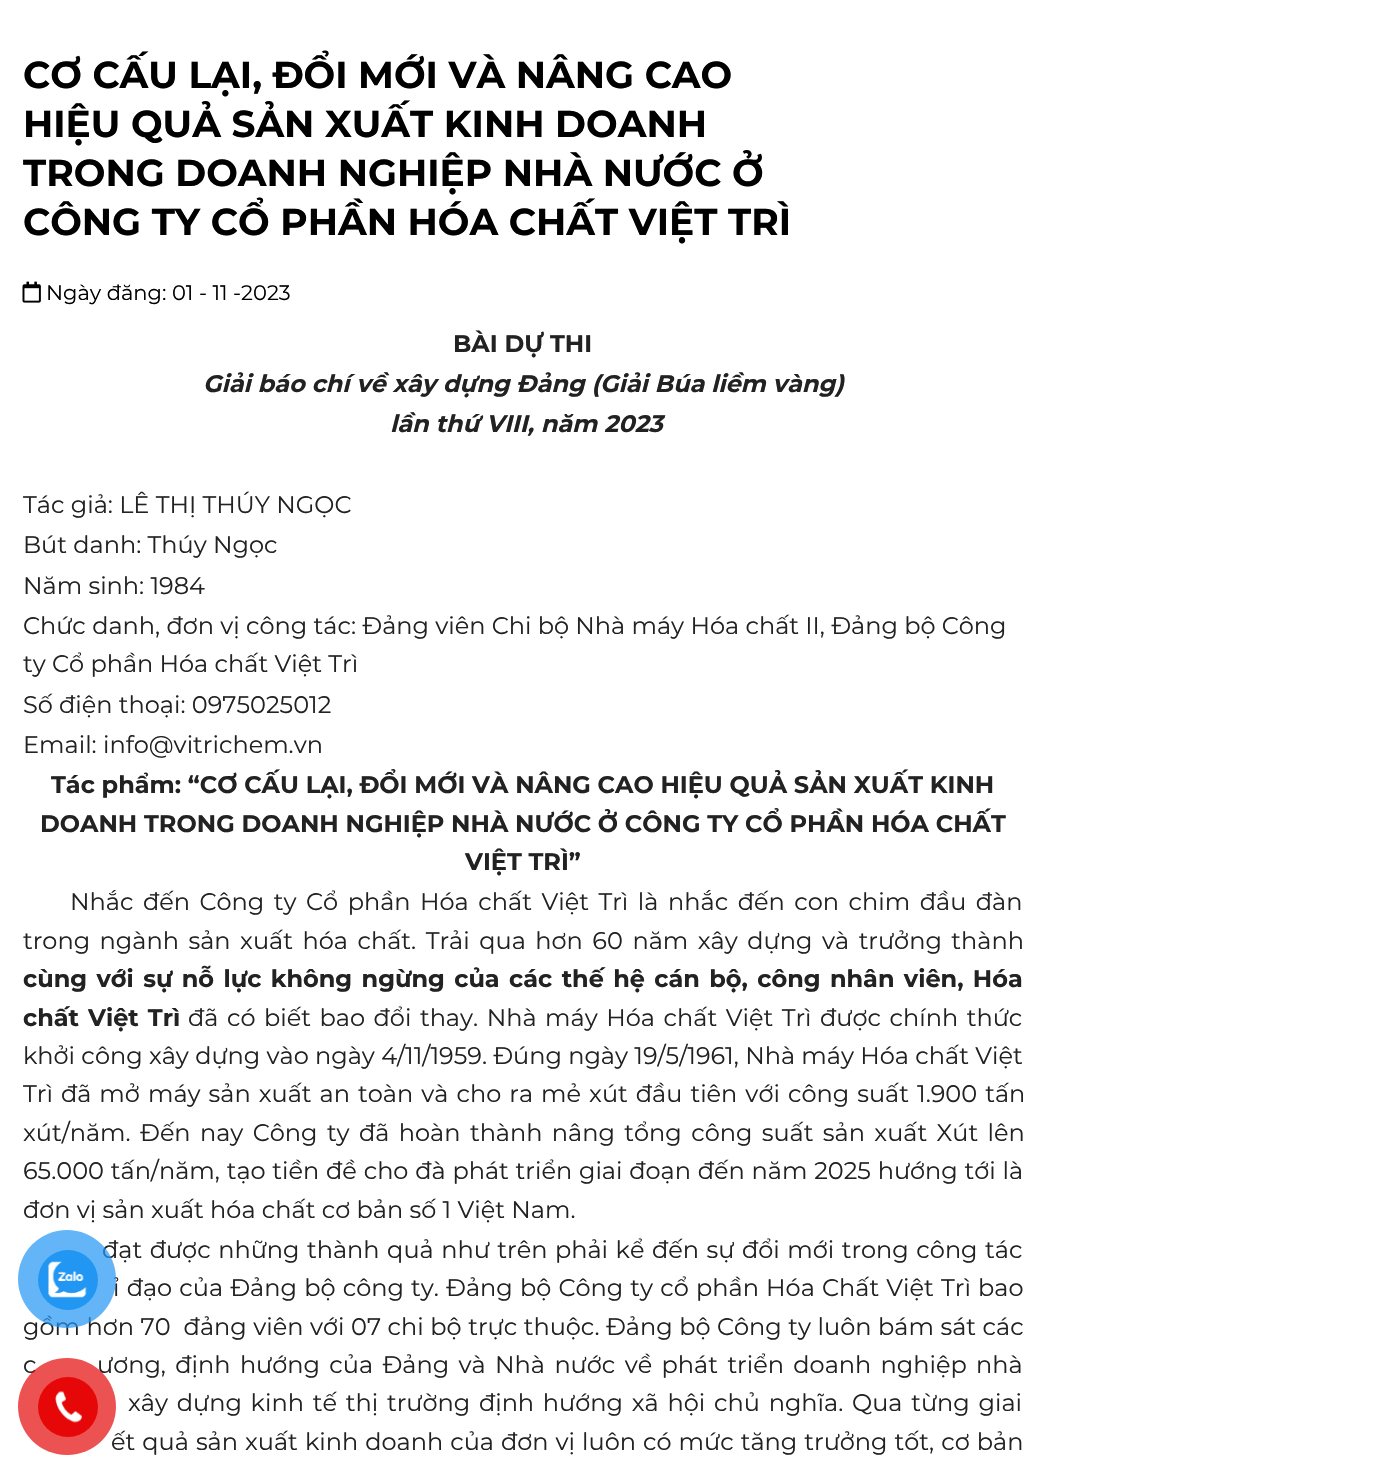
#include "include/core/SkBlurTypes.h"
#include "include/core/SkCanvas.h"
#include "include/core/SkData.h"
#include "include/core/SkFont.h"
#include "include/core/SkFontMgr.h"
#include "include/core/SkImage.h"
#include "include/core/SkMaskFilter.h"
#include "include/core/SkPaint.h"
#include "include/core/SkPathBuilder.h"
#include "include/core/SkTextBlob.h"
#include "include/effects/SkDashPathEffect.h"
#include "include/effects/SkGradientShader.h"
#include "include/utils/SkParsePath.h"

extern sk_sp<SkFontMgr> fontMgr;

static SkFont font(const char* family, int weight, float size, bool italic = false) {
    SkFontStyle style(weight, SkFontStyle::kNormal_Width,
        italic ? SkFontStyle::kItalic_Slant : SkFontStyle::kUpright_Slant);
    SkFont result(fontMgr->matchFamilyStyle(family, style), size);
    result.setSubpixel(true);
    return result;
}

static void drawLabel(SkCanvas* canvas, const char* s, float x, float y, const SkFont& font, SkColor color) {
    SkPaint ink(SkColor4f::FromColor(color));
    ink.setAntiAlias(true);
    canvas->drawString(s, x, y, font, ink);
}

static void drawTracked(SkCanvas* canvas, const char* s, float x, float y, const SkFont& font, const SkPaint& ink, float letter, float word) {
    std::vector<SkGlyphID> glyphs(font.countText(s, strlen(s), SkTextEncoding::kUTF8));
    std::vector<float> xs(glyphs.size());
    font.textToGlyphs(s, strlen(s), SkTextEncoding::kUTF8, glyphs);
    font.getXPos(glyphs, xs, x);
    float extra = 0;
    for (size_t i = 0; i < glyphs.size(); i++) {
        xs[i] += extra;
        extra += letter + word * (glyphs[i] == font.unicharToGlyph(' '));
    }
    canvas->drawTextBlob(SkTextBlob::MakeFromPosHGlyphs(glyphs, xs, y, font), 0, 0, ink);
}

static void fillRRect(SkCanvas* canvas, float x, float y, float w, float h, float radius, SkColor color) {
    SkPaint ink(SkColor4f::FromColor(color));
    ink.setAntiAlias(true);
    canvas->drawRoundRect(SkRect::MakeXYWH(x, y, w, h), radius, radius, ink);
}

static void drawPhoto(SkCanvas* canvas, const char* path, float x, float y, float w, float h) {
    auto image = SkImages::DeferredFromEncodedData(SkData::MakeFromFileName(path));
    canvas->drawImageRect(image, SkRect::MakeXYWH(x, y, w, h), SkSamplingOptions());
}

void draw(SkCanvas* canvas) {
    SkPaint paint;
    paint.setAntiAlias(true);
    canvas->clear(0xFFFFFFFF);
    SkFont font1 = font("Montserrat", 700, 37.5f);
    drawLabel(canvas, "CƠ CẤU LẠI, ĐỔI MỚI VÀ NÂNG CAO", 23, 88, font1, 0xFF000000);
    drawLabel(canvas, "HIỆU QUẢ SẢN XUẤT KINH DOANH", 23, 137, font1, 0xFF000000);
    drawLabel(canvas, "TRONG DOANH NGHIỆP NHÀ NƯỚC Ở", 23, 186, font1, 0xFF000000);
    drawLabel(canvas, "CÔNG TY CỔ PHẦN HÓA CHẤT VIỆT TRÌ", 23, 235, font1, 0xFF000000);
    drawPhoto(canvas, "assets/img1.png", 22, 281, 19, 22);
    SkFont font2 = font("Montserrat", 400, 21);
    drawLabel(canvas, "Ngày đăng: 01 - 11 -2023", 46, 300, font2, 0xFF000000);
    SkFont font3 = font("Montserrat", 700, 24);
    drawLabel(canvas, "BÀI DỰ THI", 453, 352, font3, 0xFF222222);
    SkFont font4 = font("Montserrat", 700, 24, true);
    drawLabel(canvas, "Giải báo chí về xây dựng Đảng (Giải Búa liềm vàng)", 203, 392, font4, 0xFF222222);
    drawLabel(canvas, "lần thứ VIII, năm 2023", 390, 432, font4, 0xFF222222);
    SkFont font5 = font("Montserrat", 400, 24);
    drawLabel(canvas, "Tác giả: LÊ THỊ THÚY NGỌC", 23, 513, font5, 0xFF222222);
    drawLabel(canvas, "Bút danh: Thúy Ngọc", 23, 553, font5, 0xFF222222);
    drawLabel(canvas, "Năm sinh: 1984", 23, 594, font5, 0xFF222222);
    drawLabel(canvas, "Chức danh, đơn vị công tác: Đảng viên Chi bộ Nhà máy Hóa chất II, Đảng bộ Công", 23, 634, font5, 0xFF222222);
    drawLabel(canvas, "ty Cổ phần Hóa chất Việt Trì", 23, 672, font5, 0xFF222222);
    drawLabel(canvas, "Số điện thoại: 0975025012", 23, 713, font5, 0xFF222222);
    drawLabel(canvas, "Email: info@vitrichem.vn", 23, 753, font5, 0xFF222222);
    drawLabel(canvas, "Tác phẩm: “CƠ CẤU LẠI, ĐỔI MỚI VÀ NÂNG CAO HIỆU QUẢ SẢN XUẤT KINH", 51, 793, font3, 0xFF222222);
    drawLabel(canvas, "DOANH TRONG DOANH NGHIỆP NHÀ NƯỚC Ở CÔNG TY CỔ PHẦN HÓA CHẤT", 40, 832, font3, 0xFF222222);
    drawLabel(canvas, "VIỆT TRÌ”", 465, 870, font3, 0xFF222222);
    paint.setColor(0xFF222222);
    drawTracked(canvas, "Nhắc đến Công ty Cổ phần Hóa chất Việt Trì là nhắc đến con chim đầu đàn", 70, 910, font5, paint, 0, 3.25f);
    drawTracked(canvas, "trong ngành sản xuất hóa chất. Trải qua hơn 60 năm xây dựng và trưởng thành", 23, 949, font5, paint, 0, 3.25f);
    drawTracked(canvas, "cùng với sự nỗ lực không ngừng của các thế hệ cán bộ, công nhân viên, Hóa", 23, 987, font3, paint, 0, 2.6f);
    drawTracked(canvas, "chất Việt Trì", 23, 1026, font3, paint, 0, 2.25f);
    drawTracked(canvas, "đã có biết bao đổi thay. Nhà máy Hóa chất Việt Trì được chính thức", 188, 1026, font5, paint, 0, 2.25f);
    drawLabel(canvas, "khởi công xây dựng vào ngày 4/11/1959. Đúng ngày 19/5/1961, Nhà máy Hóa chất Việt", 23, 1064, font5, 0xFF222222);
    drawTracked(canvas, "Trì đã mở máy sản xuất an toàn và cho ra mẻ xút đầu tiên với công suất 1.900 tấn", 23, 1102, font5, paint, 0, 1.75f);
    drawTracked(canvas, "xút/năm. Đến nay Công ty đã hoàn thành nâng tổng công suất sản xuất Xút lên", 23, 1141, font5, paint, 0, 3.1f);
    drawTracked(canvas, "65.000 tấn/năm, tạo tiền đề cho đà phát triển giai đoạn đến năm 2025 hướng tới là", 23, 1179, font5, paint, 0, 0.5f);
    drawLabel(canvas, "đơn vị sản xuất hóa chất cơ bản số 1 Việt Nam.", 23, 1218, font5, 0xFF222222);
    drawTracked(canvas, "đạt được những thành quả như trên phải kể đến sự đổi mới trong công tác", 102, 1258, font5, paint, 0, 1.25f);
    drawTracked(canvas, "ỉ đạo của Đảng bộ công ty. Đảng bộ Công ty cổ phần Hóa Chất Việt Trì bao", 113, 1296, font5, paint, 0, 0.9f);
    drawTracked(canvas, "gồm hơn 70  đảng viên với 07 chi bộ trực thuộc. Đảng bộ Công ty luôn bám sát các", 23, 1335, font5, paint, 0, 0.25f);
    drawTracked(canvas, "c", 23, 1373, font5, paint, 0, 3.1f);
    drawTracked(canvas, "ương, định hướng của Đảng và Nhà nước về phát triển doanh nghiệp nhà", 97, 1373, font5, paint, 0, 3.1f);
    drawTracked(canvas, "xây dựng kinh tế thị trường định hướng xã hội chủ nghĩa. Qua từng giai", 128, 1411, font5, paint, 0, 2.5f);
    drawTracked(canvas, "ết quả sản xuất kinh doanh của đơn vị luôn có mức tăng trưởng tốt, cơ bản", 111, 1450, font5, paint, 0, 0.75f);
    paint.setColor(0xB32196F3);
    canvas->drawCircle(67, 1279, 49, paint);
    paint.setColor(0xFF2196F3);
    canvas->drawCircle(68, 1280, 30, paint);
    drawPhoto(canvas, "assets/img2.png", 48, 1261, 39, 37);
    fillRRect(canvas, 18, 1358, 98, 97, 48.5f, 0xB3E60808);
    paint.setColor(0xFFE60808);
    canvas->drawCircle(68, 1407, 30, paint);
    drawPhoto(canvas, "assets/img3.png", 55, 1391, 27, 32);
}
